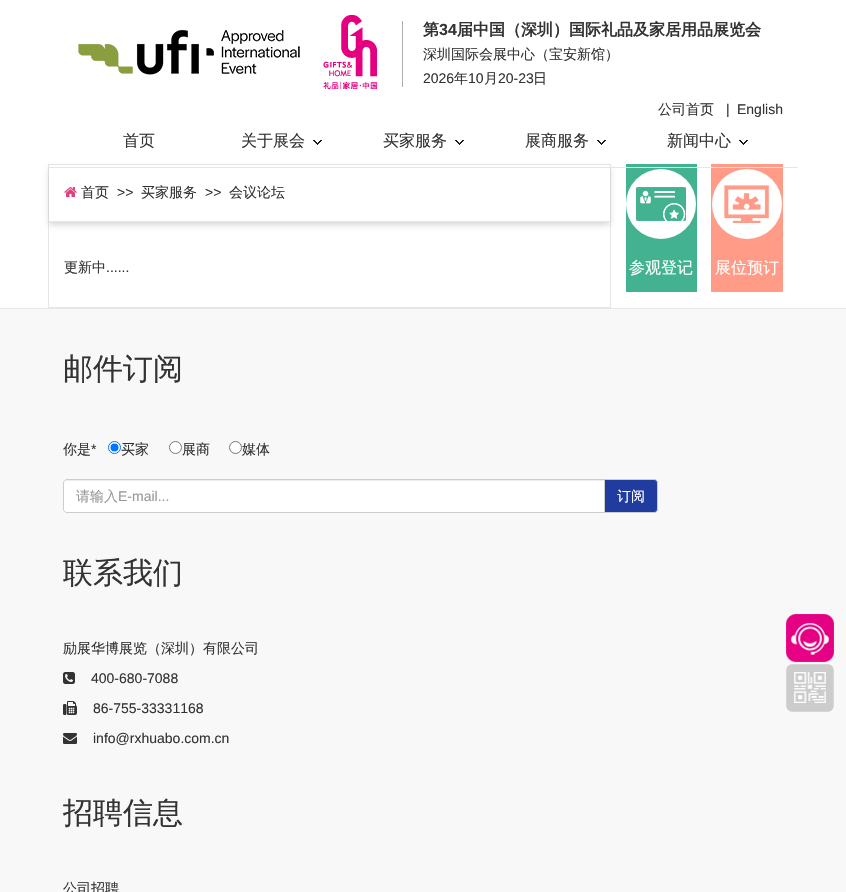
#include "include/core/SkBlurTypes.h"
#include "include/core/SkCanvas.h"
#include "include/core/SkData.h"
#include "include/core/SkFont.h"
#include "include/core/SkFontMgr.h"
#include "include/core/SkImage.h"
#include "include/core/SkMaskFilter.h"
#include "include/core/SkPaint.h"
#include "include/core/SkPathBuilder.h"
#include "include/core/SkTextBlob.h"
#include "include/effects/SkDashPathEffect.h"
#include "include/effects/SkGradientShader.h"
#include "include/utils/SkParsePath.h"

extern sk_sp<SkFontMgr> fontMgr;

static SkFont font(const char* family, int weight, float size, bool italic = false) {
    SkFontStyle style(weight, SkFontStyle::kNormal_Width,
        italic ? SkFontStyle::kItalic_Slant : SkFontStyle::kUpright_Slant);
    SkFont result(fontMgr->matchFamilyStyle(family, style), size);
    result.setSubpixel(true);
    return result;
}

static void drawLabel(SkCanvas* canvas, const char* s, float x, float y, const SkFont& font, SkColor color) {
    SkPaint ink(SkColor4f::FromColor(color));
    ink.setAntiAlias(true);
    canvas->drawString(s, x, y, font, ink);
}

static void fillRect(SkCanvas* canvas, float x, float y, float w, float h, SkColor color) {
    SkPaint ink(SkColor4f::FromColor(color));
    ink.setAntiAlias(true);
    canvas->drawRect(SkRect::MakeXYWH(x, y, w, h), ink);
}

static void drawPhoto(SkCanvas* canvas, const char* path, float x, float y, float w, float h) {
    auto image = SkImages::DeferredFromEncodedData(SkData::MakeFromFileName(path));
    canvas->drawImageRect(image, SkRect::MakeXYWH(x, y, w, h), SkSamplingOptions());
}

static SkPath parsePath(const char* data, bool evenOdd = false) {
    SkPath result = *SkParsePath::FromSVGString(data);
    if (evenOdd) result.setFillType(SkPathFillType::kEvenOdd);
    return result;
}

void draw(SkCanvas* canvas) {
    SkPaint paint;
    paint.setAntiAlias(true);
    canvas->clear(0xFFFFFFFF);
    drawPhoto(canvas, "assets/img1.png", 78, 15, 299, 74);
    fillRect(canvas, 402, 21, 1, 66, 0xFFADADAD);
    SkFont font1 = font("WenQuanYi Zen Hei", 700, 16);
    drawLabel(canvas, "第", 423, 35, font1, 0xFF333333);
    SkFont font2 = font("Liberation Sans", 700, 16);
    drawLabel(canvas, "34", 439, 35, font2, 0xFF333333);
    drawLabel(canvas, "届中国（深圳）国际礼品及家居用品展览会", 457, 35, font1, 0xFF333333);
    SkFont font3 = font("WenQuanYi Zen Hei", 500, 14);
    drawLabel(canvas, "深圳国际会展中心（宝安新馆）", 423, 59, font3, 0xFF333333);
    SkFont font4 = font("Liberation Sans", 400, 14);
    drawLabel(canvas, "2026", 423, 83, font4, 0xFF333333);
    drawLabel(canvas, "年", 454, 83, font3, 0xFF333333);
    drawLabel(canvas, "10", 468, 83, font4, 0xFF333333);
    drawLabel(canvas, "月", 484, 83, font3, 0xFF333333);
    drawLabel(canvas, "20-23", 498, 83, font4, 0xFF333333);
    drawLabel(canvas, "日", 533, 83, font3, 0xFF333333);
    drawLabel(canvas, "公司首页", 658, 114, font3, 0xFF333333);
    drawLabel(canvas, "|", 726, 114, font4, 0xFF333333);
    drawLabel(canvas, "English", 737, 114, font4, 0xFF333333);
    paint.setStroke(true);
    paint.setStrokeWidth(1);
    paint.setColor(0xFFE6E6E6);
    canvas->drawRect(SkRect::MakeXYWH(48.5f, 164.5f, 562, 143), paint);
    canvas->save();
    canvas->clipPath(parsePath("M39 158H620V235H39ZM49 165H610V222H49Z", true), true);
    paint.setStroke(false);
    paint.setColor(0x66A09E9E);
    paint.setMaskFilter(SkMaskFilter::MakeBlur(kNormal_SkBlurStyle, 3));
    canvas->drawRect(SkRect::MakeXYWH(49, 168, 561, 57), paint);
    paint.setMaskFilter(nullptr);
    canvas->restore();
    fillRect(canvas, 626, 164, 71, 128, 0xFF42B290);
    fillRect(canvas, 711, 164, 72, 128, 0xFFFF9B87);
    fillRect(canvas, 48, 167, 750, 1, 0xFFE6E6E6);
    SkFont font5 = font("WenQuanYi Zen Hei", 500, 16);
    drawLabel(canvas, "首页", 123, 146, font5, 0xFF333333);
    drawLabel(canvas, "关于展会", 241, 146, font5, 0xFF333333);
    drawPhoto(canvas, "assets/img2.png", 313, 140, 9, 5);
    drawLabel(canvas, "买家服务", 383, 146, font5, 0xFF333333);
    drawPhoto(canvas, "assets/img2.png", 455, 140, 9, 5);
    drawLabel(canvas, "展商服务", 525, 146, font5, 0xFF333333);
    drawPhoto(canvas, "assets/img2.png", 597, 140, 9, 5);
    drawLabel(canvas, "新闻中心", 667, 146, font5, 0xFF333333);
    drawPhoto(canvas, "assets/img2.png", 739, 140, 9, 5);
    fillRect(canvas, 49, 221, 561, 1, 0xFFE6E6E6);
    drawPhoto(canvas, "assets/img3.png", 64, 187, 13, 10);
    drawLabel(canvas, "首页", 81, 197, font3, 0xFF333333);
    drawLabel(canvas, ">>", 117, 197, font4, 0xFF333333);
    drawLabel(canvas, "买家服务", 141, 197, font3, 0xFF333333);
    drawLabel(canvas, ">>", 205, 197, font4, 0xFF333333);
    drawLabel(canvas, "会议论坛", 229, 197, font3, 0xFF333333);
    drawLabel(canvas, "更新中", 64, 272, font3, 0xFF333333);
    drawLabel(canvas, "......", 106, 272, font4, 0xFF333333);
    paint.setColor(0xFFFFFFFF);
    canvas->drawCircle(661, 204, 35, paint);
    drawPhoto(canvas, "assets/img4.png", 636, 187, 50, 34);
    drawLabel(canvas, "参观登记", 629, 273, font5, 0xFFFFFFFF);
    canvas->drawCircle(747, 204, 35, paint);
    drawPhoto(canvas, "assets/img5.png", 724, 185, 45, 38);
    drawLabel(canvas, "展位预订", 715, 273, font5, 0xFFFFFFFF);
    fillRect(canvas, 0, 309, 846, 583, 0xFFF8F8F8);
    fillRect(canvas, 0, 308, 846, 1, 0xFFE7E7E7);
    SkFont font6 = font("WenQuanYi Zen Hei", 500, 30);
    drawLabel(canvas, "邮件订阅", 63, 379, font6, 0xFF333333);
    drawLabel(canvas, "你是", 63, 454, font3, 0xFF333333);
    drawLabel(canvas, "*", 91, 454, font4, 0xFF333333);
    canvas->drawCircle(114.5f, 447.5f, 6, paint);
    paint.setStroke(true);
    paint.setColor(0xFF0075FF);
    canvas->drawCircle(114.5f, 447.5f, 6, paint);
    paint.setStroke(false);
    canvas->drawCircle(114.5f, 447.5f, 4, paint);
    drawLabel(canvas, "买家", 121, 454, font3, 0xFF333333);
    paint.setColor(0xFFFFFFFF);
    canvas->drawCircle(175.5f, 447.5f, 6, paint);
    paint.setStroke(true);
    paint.setColor(0xFF767676);
    canvas->drawCircle(175.5f, 447.5f, 6, paint);
    drawLabel(canvas, "展商", 182, 454, font3, 0xFF333333);
    paint.setStroke(false);
    paint.setColor(0xFFFFFFFF);
    canvas->drawCircle(235.5f, 447.5f, 6, paint);
    paint.setStroke(true);
    paint.setColor(0xFF767676);
    canvas->drawCircle(235.5f, 447.5f, 6, paint);
    drawLabel(canvas, "媒体", 242, 454, font3, 0xFF333333);
    paint.setStroke(false);
    paint.setColor(0xFFFFFFFF);
    canvas->drawPath(parsePath("M67 479H605V513H67C65 513 63 511 63 509V483C63 481 65 479 67 479Z"), paint);
    paint.setColor(0xFFECECEC);
    canvas->drawPath(parsePath("M67 481H604V480H67C65 480 64 482 64 484C64 482 65 481 67 481Z"), paint);
    paint.setStroke(true);
    paint.setColor(0xFFCCCCCC);
    canvas->drawPath(parsePath("M67 479.5H604.5V512.5H67C65 512.5 63.5 511 63.5 509V483C63.5 481 65 479.5 67 479.5Z"), paint);
    drawLabel(canvas, "请输入", 76, 501, font3, 0xFF999999);
    drawLabel(canvas, "E-mail...", 118, 501, font4, 0xFF999999);
    paint.setStroke(false);
    paint.setColor(0xFF203C9F);
    canvas->drawPath(parsePath("M604.5 479.5H654C656 479.5 657.5 481 657.5 483V509C657.5 511 656 512.5 654 512.5H604.5Z"), paint);
    paint.setStroke(true);
    paint.setColor(0xFFCCCCCC);
    canvas->drawPath(parsePath("M604.5 479.5H654C656 479.5 657.5 481 657.5 483V509C657.5 511 656 512.5 654 512.5H604.5Z"), paint);
    drawLabel(canvas, "订阅", 617, 501, font3, 0xFFFFFFFF);
    drawLabel(canvas, "联系我们", 63, 583, font6, 0xFF333333);
    drawLabel(canvas, "励展华博展览（深圳）有限公司", 63, 653, font3, 0xFF333333);
    drawPhoto(canvas, "assets/img6.png", 63, 672, 12, 12);
    drawLabel(canvas, "400-680-7088", 91, 683, font4, 0xFF333333);
    drawPhoto(canvas, "assets/img7.png", 63, 701, 14, 14);
    drawLabel(canvas, "86-755-33331168", 93, 713, font4, 0xFF333333);
    drawPhoto(canvas, "assets/img8.png", 63, 733, 14, 11);
    drawLabel(canvas, "info@rxhuabo.com.cn", 93, 743, font4, 0xFF333333);
    drawLabel(canvas, "招聘信息", 63, 823, font6, 0xFF333333);
    drawLabel(canvas, "公司招聘", 63, 893, font3, 0xFF333333);
    drawPhoto(canvas, "assets/img9.png", 786, 614, 48, 48);
    drawPhoto(canvas, "assets/img10.png", 786, 664, 48, 48);
}
